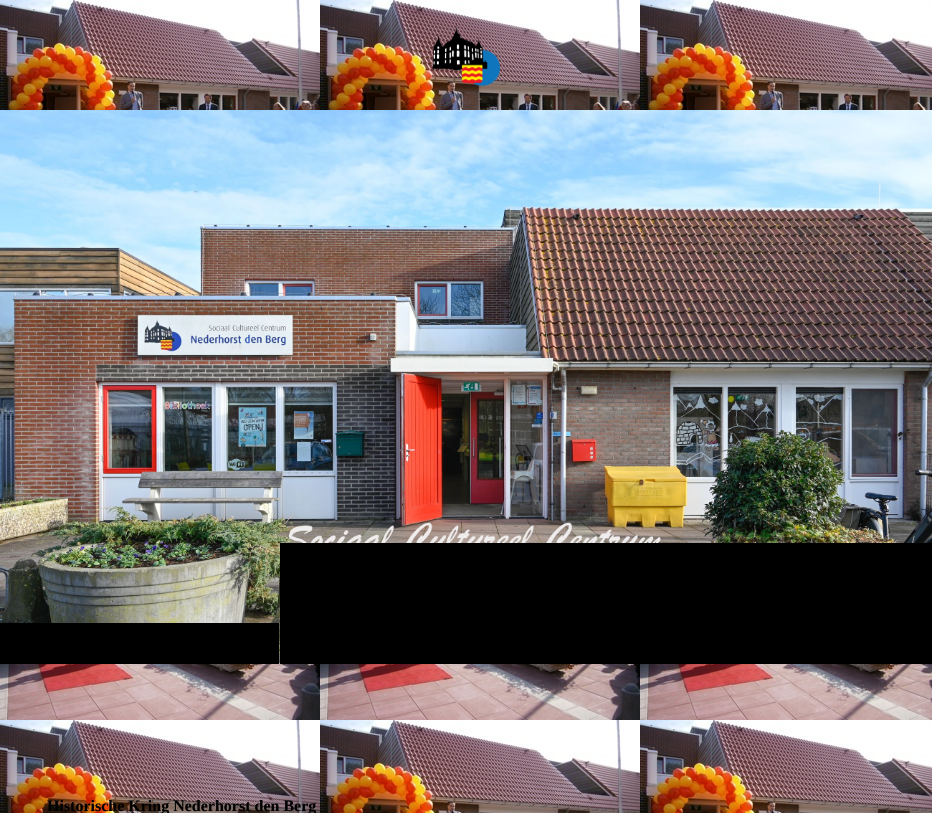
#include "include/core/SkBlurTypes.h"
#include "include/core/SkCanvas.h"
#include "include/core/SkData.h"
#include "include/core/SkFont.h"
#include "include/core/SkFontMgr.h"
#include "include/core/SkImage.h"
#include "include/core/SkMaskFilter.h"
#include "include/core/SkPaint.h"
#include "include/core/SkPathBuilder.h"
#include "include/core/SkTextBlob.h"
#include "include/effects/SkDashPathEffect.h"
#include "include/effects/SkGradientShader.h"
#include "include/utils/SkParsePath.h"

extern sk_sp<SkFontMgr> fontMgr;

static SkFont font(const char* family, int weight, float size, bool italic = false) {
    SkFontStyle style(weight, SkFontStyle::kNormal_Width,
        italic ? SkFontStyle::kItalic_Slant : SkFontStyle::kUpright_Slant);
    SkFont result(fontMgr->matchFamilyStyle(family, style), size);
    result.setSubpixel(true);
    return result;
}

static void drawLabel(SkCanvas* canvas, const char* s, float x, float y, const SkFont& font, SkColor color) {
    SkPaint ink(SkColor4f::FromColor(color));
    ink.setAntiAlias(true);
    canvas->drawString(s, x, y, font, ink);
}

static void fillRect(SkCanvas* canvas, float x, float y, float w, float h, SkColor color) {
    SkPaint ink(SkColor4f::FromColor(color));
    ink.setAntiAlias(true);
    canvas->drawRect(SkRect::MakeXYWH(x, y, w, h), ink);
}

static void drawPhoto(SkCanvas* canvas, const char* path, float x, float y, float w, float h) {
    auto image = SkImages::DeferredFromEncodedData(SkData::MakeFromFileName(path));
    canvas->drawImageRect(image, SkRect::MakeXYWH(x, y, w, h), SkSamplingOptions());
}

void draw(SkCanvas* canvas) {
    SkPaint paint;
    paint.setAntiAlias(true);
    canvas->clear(0xFFFFFFFF);
    drawPhoto(canvas, "assets/img1.png", 0, 0, 932, 813);
    drawPhoto(canvas, "assets/img2.png", 432, 24, 69, 63);
    drawPhoto(canvas, "assets/img3.png", 0, 110, 932, 553);
    fillRect(canvas, 0, 623, 279, 41, 0xFF000000);
    fillRect(canvas, 280, 543, 652, 121, 0xFF000000);
    SkFont font1 = font("Liberation Serif", 700, 16);
    drawLabel(canvas, "Historische Kring Nederhorst den Berg", 47, 811, font1, 0xFF000000);
}
